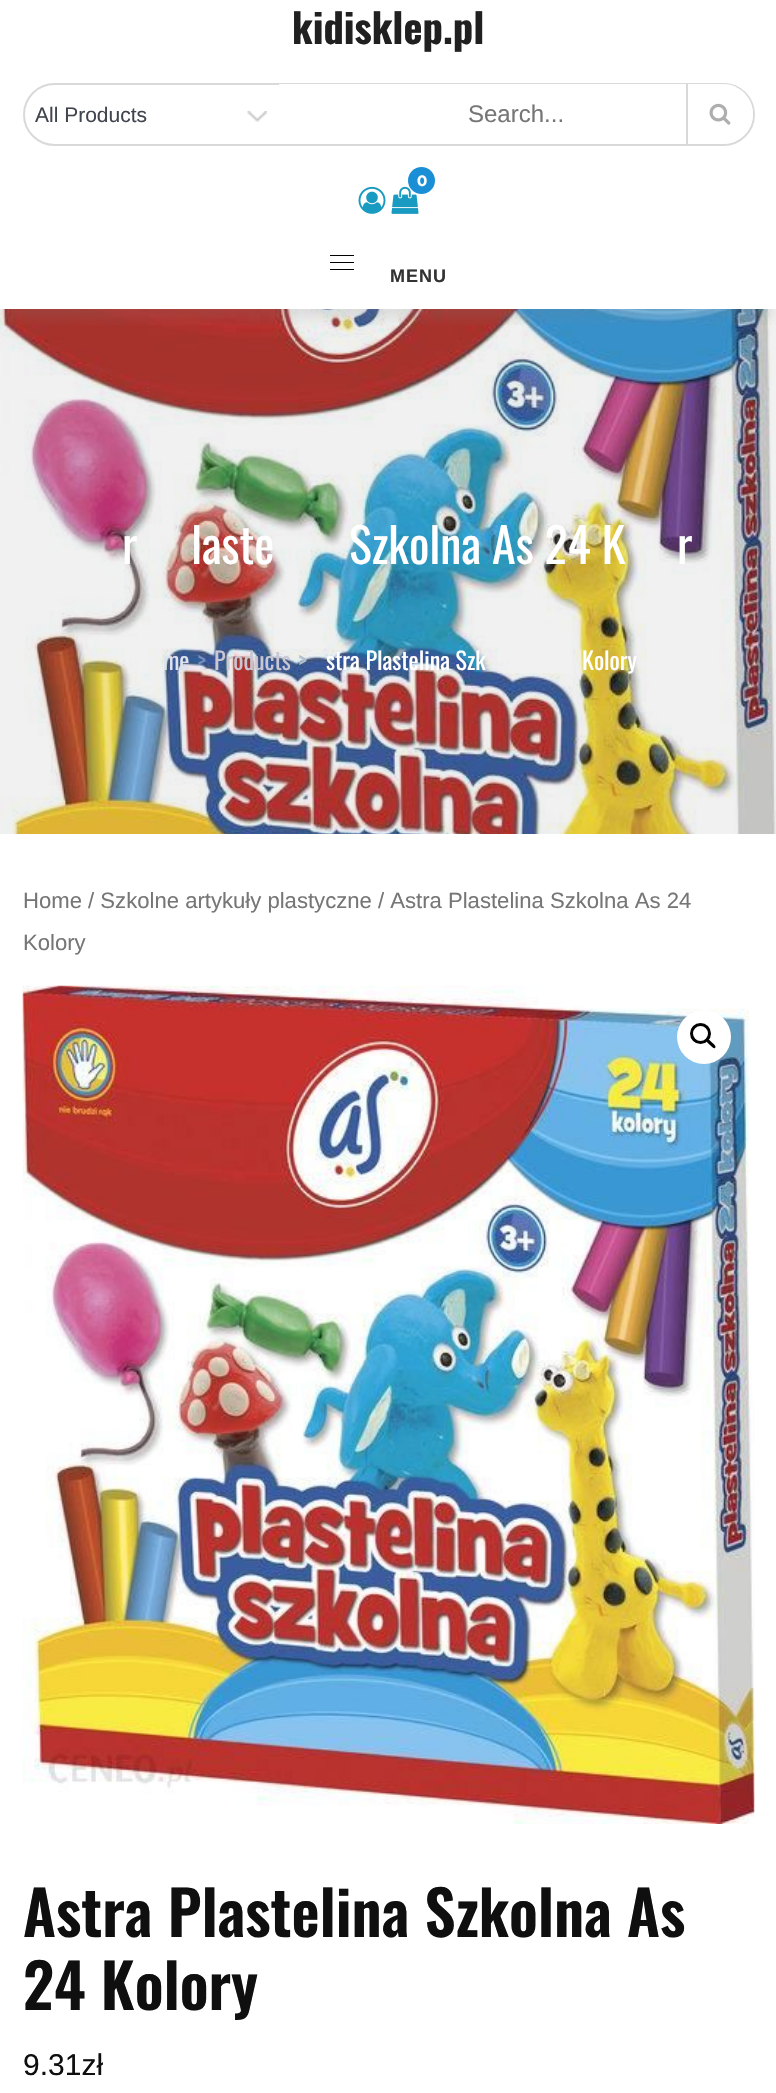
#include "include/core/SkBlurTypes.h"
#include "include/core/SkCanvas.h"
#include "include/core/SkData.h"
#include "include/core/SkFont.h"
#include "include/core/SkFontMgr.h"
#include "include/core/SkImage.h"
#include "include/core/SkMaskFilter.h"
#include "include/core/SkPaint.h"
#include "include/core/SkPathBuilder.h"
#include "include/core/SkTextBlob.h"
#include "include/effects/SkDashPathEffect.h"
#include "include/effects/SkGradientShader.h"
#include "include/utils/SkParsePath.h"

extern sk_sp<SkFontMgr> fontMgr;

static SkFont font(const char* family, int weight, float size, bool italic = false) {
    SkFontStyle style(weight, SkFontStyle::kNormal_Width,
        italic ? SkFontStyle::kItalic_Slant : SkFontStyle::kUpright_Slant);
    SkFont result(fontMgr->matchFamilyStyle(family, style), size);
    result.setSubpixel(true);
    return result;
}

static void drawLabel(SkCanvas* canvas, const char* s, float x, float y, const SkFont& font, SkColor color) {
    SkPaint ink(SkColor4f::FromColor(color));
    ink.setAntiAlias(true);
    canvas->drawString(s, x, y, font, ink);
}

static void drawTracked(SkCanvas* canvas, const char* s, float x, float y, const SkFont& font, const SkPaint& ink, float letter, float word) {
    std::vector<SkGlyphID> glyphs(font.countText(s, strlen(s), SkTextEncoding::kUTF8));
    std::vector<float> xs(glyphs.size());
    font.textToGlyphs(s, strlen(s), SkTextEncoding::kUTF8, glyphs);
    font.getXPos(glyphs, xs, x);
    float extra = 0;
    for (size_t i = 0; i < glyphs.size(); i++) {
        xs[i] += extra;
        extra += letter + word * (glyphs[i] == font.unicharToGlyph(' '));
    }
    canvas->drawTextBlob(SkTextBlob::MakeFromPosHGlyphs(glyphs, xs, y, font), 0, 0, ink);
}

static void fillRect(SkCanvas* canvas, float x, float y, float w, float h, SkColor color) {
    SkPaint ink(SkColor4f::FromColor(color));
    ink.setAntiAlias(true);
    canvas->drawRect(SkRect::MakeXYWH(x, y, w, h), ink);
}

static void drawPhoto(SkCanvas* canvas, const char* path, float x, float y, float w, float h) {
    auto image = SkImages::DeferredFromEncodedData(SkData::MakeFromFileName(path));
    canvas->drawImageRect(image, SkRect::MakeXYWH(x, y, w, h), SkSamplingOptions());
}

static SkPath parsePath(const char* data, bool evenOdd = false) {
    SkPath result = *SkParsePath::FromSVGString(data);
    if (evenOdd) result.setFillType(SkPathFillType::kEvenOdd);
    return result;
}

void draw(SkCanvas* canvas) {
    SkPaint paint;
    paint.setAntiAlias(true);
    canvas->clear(0xFFFFFFFF);
    drawPhoto(canvas, "assets/img5.png", 0, 309, 776, 525);
    canvas->save();
    canvas->clipRect(SkRect::MakeXYWH(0, 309, 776, 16));
    paint.setColor(0x2E828282);
    paint.setMaskFilter(SkMaskFilter::MakeBlur(kNormal_SkBlurStyle, 6));
    canvas->drawRect(SkRect::MakeXYWH(5, 18, 768, 300), paint);
    paint.setMaskFilter(nullptr);
    canvas->restore();
    SkFont font1 = font("Oswald", 700, 40.5f);
    drawLabel(canvas, "kidisklep.pl", 292, 44, font1, 0xFF202020);
    paint.setStroke(true);
    paint.setStrokeWidth(2);
    paint.setColor(0xFFD9D9D9);
    canvas->drawRoundRect(SkRect::MakeXYWH(24, 84, 730, 61), 30.5f, 30.5f, paint);
    drawPhoto(canvas, "assets/img1.png", 247, 111, 20, 11);
    SkFont font2 = font("Liberation Sans", 400, 21);
    drawLabel(canvas, "All Products", 35, 122, font2, 0xFF3F444D);
    paint.setStroke(false);
    paint.setColor(0xFFFFFFFF);
    canvas->drawPath(parsePath("M279 84H723C739.5 84 753 97.5 753 114C753 130.5 739.5 144 723 144H279Z"), paint);
    SkFont font3 = font("Liberation Sans", 400, 24);
    drawLabel(canvas, "Search...", 468, 122, font3, 0xFF767676);
    fillRect(canvas, 686, 84, 2, 60, 0xFFD9D9D9);
    drawPhoto(canvas, "assets/img2.png", 709, 103, 22, 22);
    drawPhoto(canvas, "assets/img3.png", 391, 186, 28, 28);
    paint.setColor(0xFF1B8FD5);
    canvas->drawCircle(421.5f, 180.5f, 13.5f, paint);
    SkFont font4 = font("Montserrat", 700, 15);
    drawLabel(canvas, "0", 417, 186, font4, 0xFFFFFFFF);
    drawPhoto(canvas, "assets/img4.png", 358, 186, 28, 28);
    fillRect(canvas, 330, 255, 24, 1, 0xFF000000);
    fillRect(canvas, 330, 262, 24, 1, 0xFF000000);
    fillRect(canvas, 330, 269, 24, 1, 0xFF000000);
    SkFont font5 = font("Liberation Sans", 700, 18);
    paint.setColor(0xFF333333);
    drawTracked(canvas, "MENU", 390, 282, font5, paint, 1, 0);
    SkFont font6 = font("Oswald", 400, 48);
    drawLabel(canvas, "r", 122, 564, font6, 0xFFFFFFFF);
    drawLabel(canvas, "laste", 191, 564, font6, 0xFFFFFFFF);
    drawLabel(canvas, "Szkolna As 24 K", 349, 564, font6, 0xFFFFFFFF);
    drawLabel(canvas, "r", 677, 564, font6, 0xFFFFFFFF);
    SkFont font7 = font("Oswald", 400, 24);
    drawLabel(canvas, "me", 163, 670, font7, 0xFFDFE3EB);
    drawLabel(canvas, ">", 197, 670, font7, 0xFF758DB7);
    drawLabel(canvas, "Products", 214, 670, font7, 0xFFCAC7D3);
    drawLabel(canvas, ">", 298, 670, font7, 0xFFB4C0CD);
    drawLabel(canvas, "stra Plastelina Szk", 326, 670, font7, 0xFFFFFFFF);
    drawLabel(canvas, "Kolory", 582, 670, font7, 0xFFFFFFFF);
    SkFont font8 = font("Liberation Sans", 400, 22.1f);
    drawLabel(canvas, "Home / Szkolne artykuły plastyczne / Astra Plastelina Szkolna As 24", 23, 908, font8, 0xFF767676);
    drawLabel(canvas, "Kolory", 23, 950, font8, 0xFF767676);
    drawPhoto(canvas, "assets/img6.png", 22, 985, 733, 839);
    paint.setColor(0xFFFFFFFF);
    canvas->drawCircle(704, 1037, 27, paint);
    paint.setStroke(true);
    paint.setStrokeWidth(3);
    paint.setColor(0xFF000000);
    canvas->drawCircle(700.5f, 1033.5f, 9, paint);
    paint.setStroke(false);
    canvas->drawPath(parsePath("M707 1039.5C708.5 1038 711 1041.5 712 1042.5C713 1043.5 717 1046.5 715 1048C713.5 1049.5 711 1045.5 710 1045C709 1044 705 1041 707 1039.5Z"), paint);
    SkFont font9 = font("Oswald", 600, 61.25f);
    drawLabel(canvas, "Astra Plastelina Szkolna As", 23, 1937, font9, 0xFF0F0F0F);
    drawLabel(canvas, "24 Kolory", 23, 2010, font9, 0xFF0F0F0F);
    SkFont font10 = font("Liberation Sans", 400, 30);
    drawLabel(canvas, "9.31zł", 23, 2075, font10, 0xFF0F0F0F);
}
